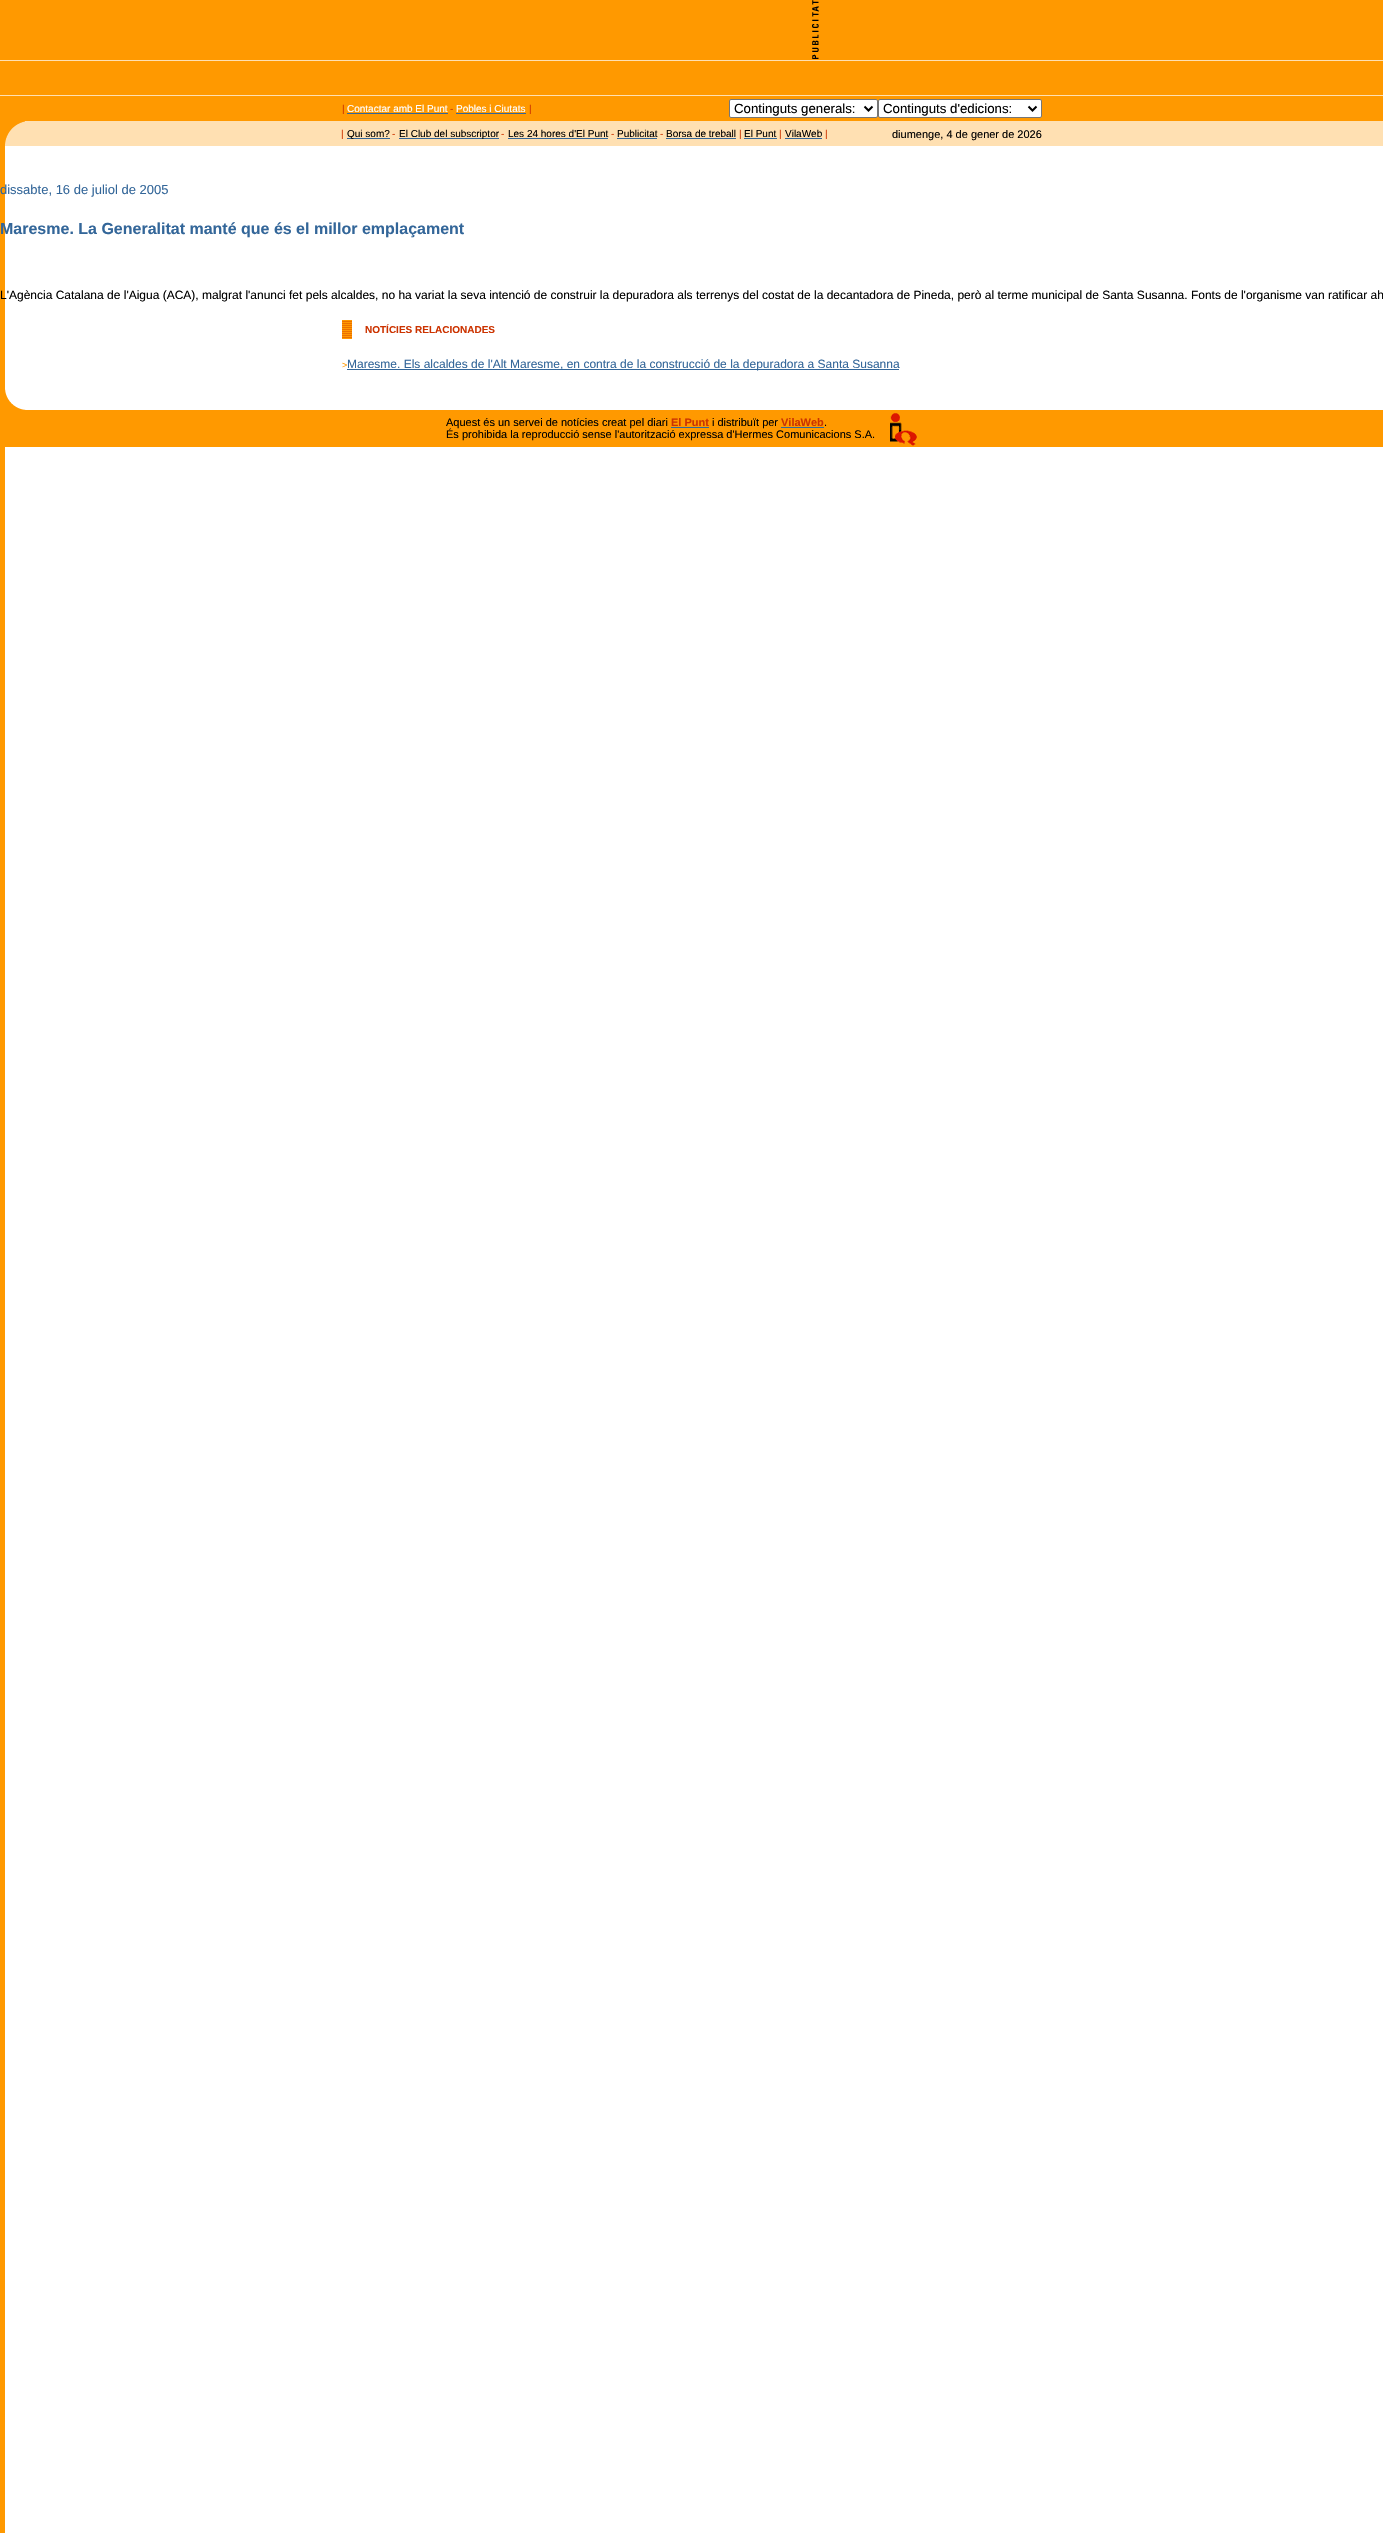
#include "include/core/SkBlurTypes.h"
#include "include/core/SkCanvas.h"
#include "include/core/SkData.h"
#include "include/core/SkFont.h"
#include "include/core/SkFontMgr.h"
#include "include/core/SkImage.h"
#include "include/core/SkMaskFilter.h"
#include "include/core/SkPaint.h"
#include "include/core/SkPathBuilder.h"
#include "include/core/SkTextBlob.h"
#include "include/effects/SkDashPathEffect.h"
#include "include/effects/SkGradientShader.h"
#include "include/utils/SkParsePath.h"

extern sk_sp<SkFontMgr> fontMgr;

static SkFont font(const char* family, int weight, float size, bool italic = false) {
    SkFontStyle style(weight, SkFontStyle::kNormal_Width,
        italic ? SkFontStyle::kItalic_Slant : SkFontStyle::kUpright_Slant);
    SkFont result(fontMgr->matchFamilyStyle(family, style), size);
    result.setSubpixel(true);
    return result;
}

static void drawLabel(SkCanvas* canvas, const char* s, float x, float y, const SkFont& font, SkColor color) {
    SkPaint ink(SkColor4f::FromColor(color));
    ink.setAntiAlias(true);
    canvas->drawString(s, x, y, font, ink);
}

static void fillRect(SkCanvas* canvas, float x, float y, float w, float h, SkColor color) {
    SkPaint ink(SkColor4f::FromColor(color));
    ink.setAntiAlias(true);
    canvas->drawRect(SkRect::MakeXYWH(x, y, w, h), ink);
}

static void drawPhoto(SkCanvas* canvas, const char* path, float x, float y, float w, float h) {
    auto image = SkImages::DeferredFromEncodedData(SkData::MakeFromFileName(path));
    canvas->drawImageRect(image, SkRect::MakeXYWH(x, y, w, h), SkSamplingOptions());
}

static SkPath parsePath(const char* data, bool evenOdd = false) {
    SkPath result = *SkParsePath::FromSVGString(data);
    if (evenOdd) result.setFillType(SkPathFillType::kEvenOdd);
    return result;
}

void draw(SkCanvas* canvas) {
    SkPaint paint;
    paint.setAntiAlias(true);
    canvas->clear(0xFFFFFFFF);
    fillRect(canvas, 0, 146, 5, 2387, 0xFFFF9900);
    fillRect(canvas, 0, 0, 1383, 60, 0xFFFF9900);
    drawPhoto(canvas, "assets/img1.png", 812, 0, 7, 59);
    fillRect(canvas, 0, 60, 1383, 1, 0xFFFFE0B2);
    fillRect(canvas, 0, 61, 1383, 34, 0xFFFF9900);
    fillRect(canvas, 0, 95, 1383, 1, 0xFFFFE0B2);
    fillRect(canvas, 0, 96, 1383, 25, 0xFFFF9900);
    SkFont font1 = font("Liberation Sans", 400, 10);
    drawLabel(canvas, "|", 342, 112, font1, 0xFFCC3300);
    drawLabel(canvas, "Contactar amb El Punt", 347, 112, font1, 0xFFFFFFFF);
    fillRect(canvas, 347, 113, 101, 1, 0xFF336699);
    drawLabel(canvas, "-", 450, 112, font1, 0xFFCC3300);
    drawLabel(canvas, "Pobles i Ciutats", 456, 112, font1, 0xFFFFFFFF);
    fillRect(canvas, 456, 113, 70, 1, 0xFF336699);
    drawLabel(canvas, "|", 529, 112, font1, 0xFFCC3300);
    paint.setColor(0xFFFFFFFF);
    canvas->drawRoundRect(SkRect::MakeXYWH(729.5f, 99.5f, 148, 18), 1.5f, 1.5f, paint);
    paint.setStroke(true);
    paint.setStrokeWidth(1);
    paint.setColor(0xFF767676);
    canvas->drawRoundRect(SkRect::MakeXYWH(729.5f, 99.5f, 148, 18), 1.5f, 1.5f, paint);
    paint.setStrokeWidth(2);
    paint.setColor(0xFF000000);
    canvas->drawPath(parsePath("M864.5 106.5L868.5 110.5L872.5 106.5"), paint);
    SkFont font2 = font("Liberation Sans", 400, 13.25f);
    drawLabel(canvas, "Continguts generals:", 734, 113, font2, 0xFF000000);
    paint.setStroke(false);
    paint.setColor(0xFFFFFFFF);
    canvas->drawRoundRect(SkRect::MakeXYWH(878.5f, 99.5f, 163, 18), 1.5f, 1.5f, paint);
    paint.setStroke(true);
    paint.setStrokeWidth(1);
    paint.setColor(0xFF767676);
    canvas->drawRoundRect(SkRect::MakeXYWH(878.5f, 99.5f, 163, 18), 1.5f, 1.5f, paint);
    paint.setStrokeWidth(2);
    paint.setColor(0xFF000000);
    canvas->drawPath(parsePath("M1028.5 106.5L1032.5 110.5L1036.5 106.5"), paint);
    drawLabel(canvas, "Continguts d'edicions:", 883, 113, font2, 0xFF000000);
    fillRect(canvas, 5, 121, 1378, 25, 0xFFFFE0B2);
    drawPhoto(canvas, "assets/img2.png", 0, 121, 25, 25);
    drawLabel(canvas, "|", 341, 137, font1, 0xFFCC3300);
    fillRect(canvas, 347, 138, 43, 1, 0xFF336699);
    drawLabel(canvas, "Qui som?", 347, 137, font1, 0xFF000000);
    drawLabel(canvas, "-", 392, 137, font1, 0xFFCC3300);
    fillRect(canvas, 399, 138, 100, 1, 0xFF336699);
    drawLabel(canvas, "El Club del subscriptor", 399, 137, font1, 0xFF000000);
    drawLabel(canvas, "-", 501, 137, font1, 0xFFCC3300);
    drawLabel(canvas, "Les 24 hores d'El Punt", 508, 137, font1, 0xFF000000);
    fillRect(canvas, 508, 138, 100, 1, 0xFF336699);
    drawLabel(canvas, "-", 611, 137, font1, 0xFFCC3300);
    drawLabel(canvas, "Publicitat", 617, 137, font1, 0xFF000000);
    fillRect(canvas, 617, 138, 40, 1, 0xFF336699);
    drawLabel(canvas, "-", 660, 137, font1, 0xFFCC3300);
    drawLabel(canvas, "Borsa de treball", 666, 137, font1, 0xFF000000);
    fillRect(canvas, 666, 138, 70, 1, 0xFF336699);
    drawLabel(canvas, "|", 739, 137, font1, 0xFFCC3300);
    drawLabel(canvas, "El Punt", 744, 137, font1, 0xFF000000);
    fillRect(canvas, 744, 138, 33, 1, 0xFF336699);
    drawLabel(canvas, "|", 779, 137, font1, 0xFFCC3300);
    drawLabel(canvas, "VilaWeb", 785, 137, font1, 0xFF000000);
    fillRect(canvas, 785, 138, 37, 1, 0xFF336699);
    drawLabel(canvas, "|", 825, 137, font1, 0xFFCC3300);
    SkFont font3 = font("Liberation Sans", 400, 11);
    drawLabel(canvas, "diumenge, 4 de gener de 2026", 892, 138, font3, 0xFF000000);
    SkFont font4 = font("Liberation Sans", 400, 13);
    drawLabel(canvas, "dissabte, 16 de juliol de 2005", 0, 194, font4, 0xFF336699);
    SkFont font5 = font("Liberation Sans", 700, 16);
    drawLabel(canvas, "Maresme. La Generalitat manté que és el millor emplaçament", 0, 234, font5, 0xFF336699);
    SkFont font6 = font("Liberation Sans", 400, 12);
    drawLabel(canvas, "L'Agència Catalana de l'Aigua (ACA), malgrat l'anunci fet pels alcaldes, no ha variat la seva intenció de construir la depuradora als terrenys del costat de la decantadora de Pineda, però al terme municipal de Santa Susanna. Fonts de l'organisme van ratificar ah", 0, 299, font6, 0xFF000000);
    drawPhoto(canvas, "assets/img3.png", 342, 320, 10, 19);
    SkFont font7 = font("Liberation Sans", 700, 10);
    drawLabel(canvas, "NOTÍCIES RELACIONADES", 365, 333, font7, 0xFFCC3300);
    SkFont font8 = font("Liberation Sans", 400, 9);
    drawLabel(canvas, ">", 342, 368, font8, 0xFFFF9900);
    fillRect(canvas, 347, 369, 552, 1, 0xFF336699);
    drawLabel(canvas, "Maresme. Els alcaldes de l'Alt Maresme, en contra de la construcció de la depuradora a Santa Susanna", 347, 368, font6, 0xFF336699);
    drawPhoto(canvas, "assets/img4.png", 5, 389, 21, 21);
    fillRect(canvas, 5, 410, 1378, 37, 0xFFFF9900);
    drawLabel(canvas, "Aquest és un servei de notícies creat pel diari", 446, 426, font3, 0xFF000000);
    SkFont font9 = font("Liberation Sans", 700, 11);
    drawLabel(canvas, "El Punt", 671, 426, font9, 0xFFCC3300);
    fillRect(canvas, 671, 427, 38, 1, 0xFF336699);
    drawLabel(canvas, "i distribuït per", 712, 426, font3, 0xFF000000);
    drawLabel(canvas, "VilaWeb", 781, 426, font9, 0xFFCC3300);
    drawLabel(canvas, ".", 824, 426, font3, 0xFF000000);
    fillRect(canvas, 781, 427, 43, 1, 0xFF336699);
    drawLabel(canvas, "És prohibida la reproducció sense l'autorització expressa d'Hermes Comunicacions S.A.", 446, 438, font3, 0xFF000000);
    drawPhoto(canvas, "assets/img5.png", 890, 413, 27, 33);
}
